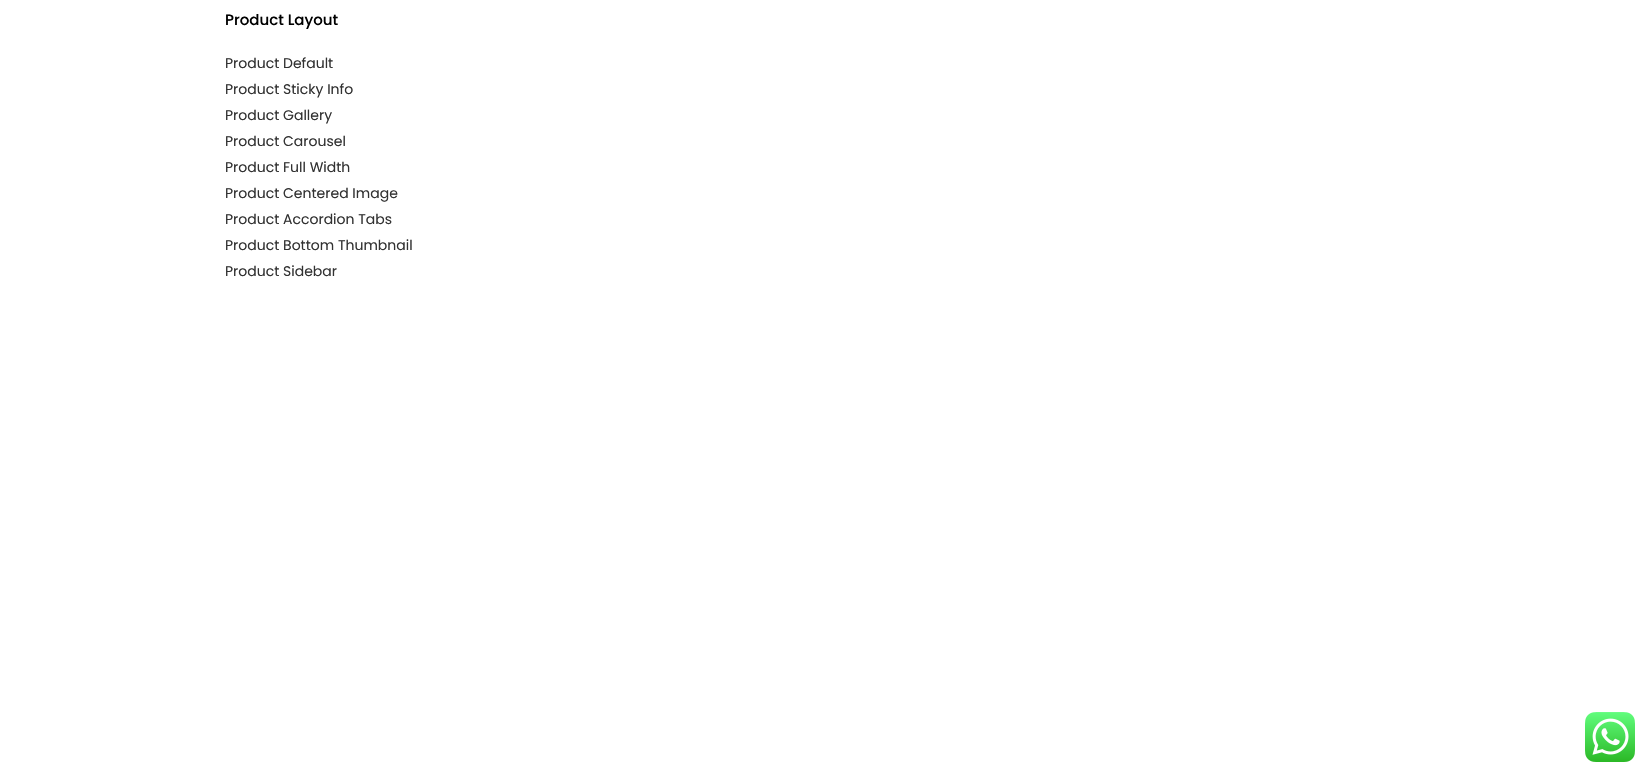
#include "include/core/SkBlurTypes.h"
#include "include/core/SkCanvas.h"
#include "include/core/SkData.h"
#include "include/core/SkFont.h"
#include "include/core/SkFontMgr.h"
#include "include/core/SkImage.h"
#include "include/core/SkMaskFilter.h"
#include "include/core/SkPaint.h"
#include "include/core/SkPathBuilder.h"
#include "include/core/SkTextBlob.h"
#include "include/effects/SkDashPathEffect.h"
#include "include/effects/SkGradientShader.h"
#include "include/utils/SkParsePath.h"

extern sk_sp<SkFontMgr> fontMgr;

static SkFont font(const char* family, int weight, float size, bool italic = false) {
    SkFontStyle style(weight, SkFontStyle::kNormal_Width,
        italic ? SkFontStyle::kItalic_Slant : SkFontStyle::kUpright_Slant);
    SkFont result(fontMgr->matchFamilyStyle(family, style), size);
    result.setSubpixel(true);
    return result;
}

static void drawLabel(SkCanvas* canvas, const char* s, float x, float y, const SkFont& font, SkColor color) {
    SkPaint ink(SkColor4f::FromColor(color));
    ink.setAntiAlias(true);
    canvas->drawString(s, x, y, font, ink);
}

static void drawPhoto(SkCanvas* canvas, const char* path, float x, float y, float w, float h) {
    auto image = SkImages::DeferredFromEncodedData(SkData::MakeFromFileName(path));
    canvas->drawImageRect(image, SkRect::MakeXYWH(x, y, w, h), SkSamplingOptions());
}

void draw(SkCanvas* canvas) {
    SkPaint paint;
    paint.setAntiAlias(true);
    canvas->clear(0xFFFFFFFF);
    SkFont font1 = font("Poppins", 500, 15);
    drawLabel(canvas, "Product Layout", 225, 25, font1, 0xFF000000);
    SkFont font2 = font("Poppins", 400, 14);
    drawLabel(canvas, "Product Default", 225, 68, font2, 0xFF323232);
    drawLabel(canvas, "Product Sticky Info", 225, 94, font2, 0xFF323232);
    drawLabel(canvas, "Product Gallery", 225, 120, font2, 0xFF323232);
    drawLabel(canvas, "Product Carousel", 225, 146, font2, 0xFF323232);
    drawLabel(canvas, "Product Full Width", 225, 172, font2, 0xFF323232);
    drawLabel(canvas, "Product Centered Image", 225, 198, font2, 0xFF323232);
    drawLabel(canvas, "Product Accordion Tabs", 225, 224, font2, 0xFF323232);
    drawLabel(canvas, "Product Bottom Thumbnail", 225, 250, font2, 0xFF323232);
    drawLabel(canvas, "Product Sidebar", 225, 276, font2, 0xFF323232);
    drawPhoto(canvas, "assets/img1.png", 1585, 712, 50, 50);
}
